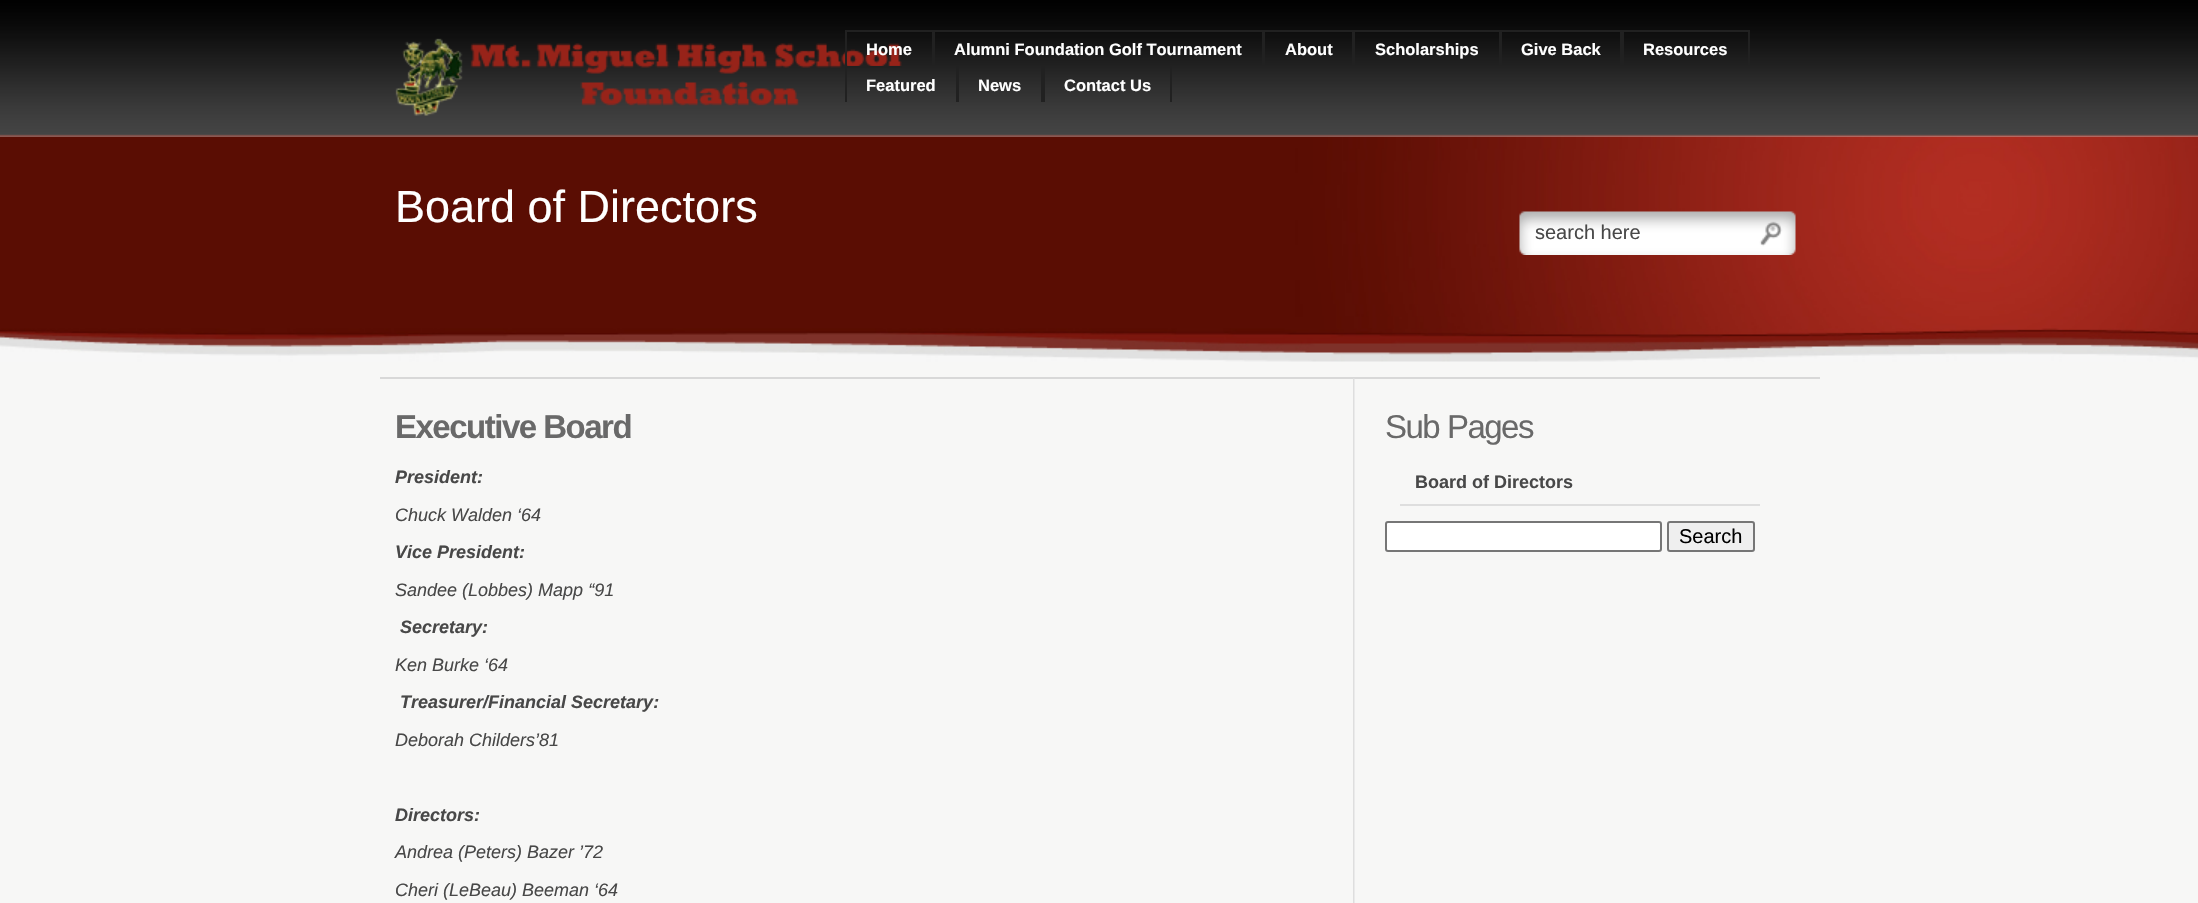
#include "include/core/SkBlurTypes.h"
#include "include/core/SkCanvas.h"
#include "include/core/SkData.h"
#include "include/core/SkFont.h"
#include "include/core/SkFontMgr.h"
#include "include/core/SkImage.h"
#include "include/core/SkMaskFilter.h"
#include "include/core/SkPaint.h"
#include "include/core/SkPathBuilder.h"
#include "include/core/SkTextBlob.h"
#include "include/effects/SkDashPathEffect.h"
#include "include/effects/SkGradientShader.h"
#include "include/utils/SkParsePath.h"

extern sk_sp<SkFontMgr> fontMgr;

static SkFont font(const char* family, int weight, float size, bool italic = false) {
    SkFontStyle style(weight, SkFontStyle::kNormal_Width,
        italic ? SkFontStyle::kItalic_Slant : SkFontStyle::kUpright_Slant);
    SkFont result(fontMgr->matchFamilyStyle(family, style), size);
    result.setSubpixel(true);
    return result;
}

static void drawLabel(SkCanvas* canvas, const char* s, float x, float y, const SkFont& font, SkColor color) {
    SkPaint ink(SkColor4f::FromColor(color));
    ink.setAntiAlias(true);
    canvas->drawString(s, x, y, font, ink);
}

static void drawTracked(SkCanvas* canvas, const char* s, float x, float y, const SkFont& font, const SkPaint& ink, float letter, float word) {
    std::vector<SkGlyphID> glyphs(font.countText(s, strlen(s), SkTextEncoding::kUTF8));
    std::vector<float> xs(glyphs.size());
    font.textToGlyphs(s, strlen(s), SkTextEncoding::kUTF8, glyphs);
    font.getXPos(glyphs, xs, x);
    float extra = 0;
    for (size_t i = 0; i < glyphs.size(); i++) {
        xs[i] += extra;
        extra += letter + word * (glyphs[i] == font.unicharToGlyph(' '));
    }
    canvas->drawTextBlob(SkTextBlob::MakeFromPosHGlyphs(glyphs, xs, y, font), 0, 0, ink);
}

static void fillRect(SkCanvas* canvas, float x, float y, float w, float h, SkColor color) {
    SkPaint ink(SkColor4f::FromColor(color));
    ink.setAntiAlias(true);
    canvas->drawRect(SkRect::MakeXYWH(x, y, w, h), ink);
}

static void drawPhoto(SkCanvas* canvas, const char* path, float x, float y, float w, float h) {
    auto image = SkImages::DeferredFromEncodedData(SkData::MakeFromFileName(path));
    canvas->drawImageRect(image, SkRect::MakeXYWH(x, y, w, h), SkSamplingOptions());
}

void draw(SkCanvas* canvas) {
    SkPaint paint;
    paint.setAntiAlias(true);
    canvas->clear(0xFFF7F7F6);
    drawPhoto(canvas, "assets/img1.png", 0, 0, 2198, 137);
    drawPhoto(canvas, "assets/img2.png", 395, 38, 507, 78);
    fillRect(canvas, 845, 30, 904, 2, 0xFF212121);
    fillRect(canvas, 932, 30, 3, 36, 0xFF212121);
    fillRect(canvas, 845, 30, 2, 36, 0xFF212121);
    SkFont font1 = font("Liberation Sans", 700, 16.5f);
    drawLabel(canvas, "Home", 866, 55, font1, 0xFFFFFFFF);
    fillRect(canvas, 1262, 30, 3, 36, 0xFF212121);
    drawLabel(canvas, "Alumni Foundation Golf Tournament", 954, 55, font1, 0xFFFFFFFF);
    fillRect(canvas, 1352, 30, 3, 36, 0xFF212121);
    drawLabel(canvas, "About", 1285, 55, font1, 0xFFFFFFFF);
    fillRect(canvas, 1499, 30, 3, 36, 0xFF212121);
    drawLabel(canvas, "Scholarships", 1375, 55, font1, 0xFFFFFFFF);
    fillRect(canvas, 1620, 30, 4, 36, 0xFF212121);
    drawLabel(canvas, "Give Back", 1521, 55, font1, 0xFFFFFFFF);
    fillRect(canvas, 1748, 30, 2, 36, 0xFF212121);
    drawLabel(canvas, "Resources", 1643, 55, font1, 0xFFFFFFFF);
    fillRect(canvas, 845, 66, 57, 2, 0xFF212121);
    fillRect(canvas, 956, 66, 3, 36, 0xFF212121);
    fillRect(canvas, 845, 66, 2, 36, 0xFF212121);
    drawLabel(canvas, "Featured", 866, 91, font1, 0xFFFFFFFF);
    fillRect(canvas, 1041, 66, 4, 36, 0xFF212121);
    drawLabel(canvas, "News", 978, 91, font1, 0xFFFFFFFF);
    fillRect(canvas, 1170, 66, 2, 36, 0xFF212121);
    drawLabel(canvas, "Contact Us", 1064, 91, font1, 0xFFFFFFFF);
    drawPhoto(canvas, "assets/img3.png", 0, 136, 2198, 226);
    SkFont font2 = font("Liberation Sans", 400, 45);
    drawLabel(canvas, "Board of Directors", 395, 222, font2, 0xFFFFFFFF);
    drawPhoto(canvas, "assets/img4.png", 1519, 211, 277, 44);
    SkFont font3 = font("Liberation Sans", 400, 20);
    drawLabel(canvas, "search here", 1535, 239, font3, 0xFF484848);
    fillRect(canvas, 380, 377, 1440, 2, 0xFFD8D8D8);
    drawPhoto(canvas, "assets/img5.png", 1353, 378, 2, 525);
    SkFont font4 = font("Liberation Sans", 700, 33);
    paint.setColor(0xFF696969);
    drawTracked(canvas, "Executive Board", 395, 438, font4, paint, -1.5f, 0);
    SkFont font5 = font("Liberation Sans", 700, 18, true);
    drawLabel(canvas, "President:", 395, 483, font5, 0xFF484848);
    SkFont font6 = font("Liberation Sans", 400, 18, true);
    drawLabel(canvas, "Chuck Walden ‘64", 395, 521, font6, 0xFF484848);
    drawLabel(canvas, "Vice President:", 395, 558, font5, 0xFF484848);
    drawLabel(canvas, "Sandee (Lobbes) Mapp “91", 395, 596, font6, 0xFF484848);
    drawLabel(canvas, "Secretary:", 400, 633, font5, 0xFF484848);
    drawLabel(canvas, "Ken Burke ‘64", 395, 671, font6, 0xFF484848);
    drawLabel(canvas, "Treasurer/Financial Secretary:", 400, 708, font5, 0xFF484848);
    drawLabel(canvas, "Deborah Childers’81", 395, 746, font6, 0xFF484848);
    drawLabel(canvas, "Directors:", 395, 821, font5, 0xFF484848);
    drawLabel(canvas, "Andrea (Peters) Bazer ’72", 395, 858, font6, 0xFF484848);
    drawLabel(canvas, "Cheri (LeBeau) Beeman ‘64", 395, 896, font6, 0xFF484848);
    SkFont font7 = font("Liberation Sans", 400, 33);
    drawTracked(canvas, "Sub Pages", 1385, 438, font7, paint, -1.5f, 0);
    fillRect(canvas, 1400, 504, 360, 2, 0xFFDEDEDE);
    SkFont font8 = font("Liberation Sans", 700, 18);
    drawLabel(canvas, "Board of Directors", 1415, 488, font8, 0xFF484848);
    paint.setColor(0xFFFFFFFF);
    canvas->drawRoundRect(SkRect::MakeXYWH(1386, 522, 275, 29), 2, 2, paint);
    paint.setStroke(true);
    paint.setStrokeWidth(2);
    paint.setColor(0xFF767676);
    canvas->drawRoundRect(SkRect::MakeXYWH(1386, 522, 275, 29), 2, 2, paint);
    paint.setStroke(false);
    paint.setColor(0xFFEFEFEF);
    canvas->drawRoundRect(SkRect::MakeXYWH(1668, 522, 86, 29), 2, 2, paint);
    paint.setStroke(true);
    paint.setColor(0xFF767676);
    canvas->drawRoundRect(SkRect::MakeXYWH(1668, 522, 86, 29), 2, 2, paint);
    drawLabel(canvas, "Search", 1679, 543, font3, 0xFF000000);
}
